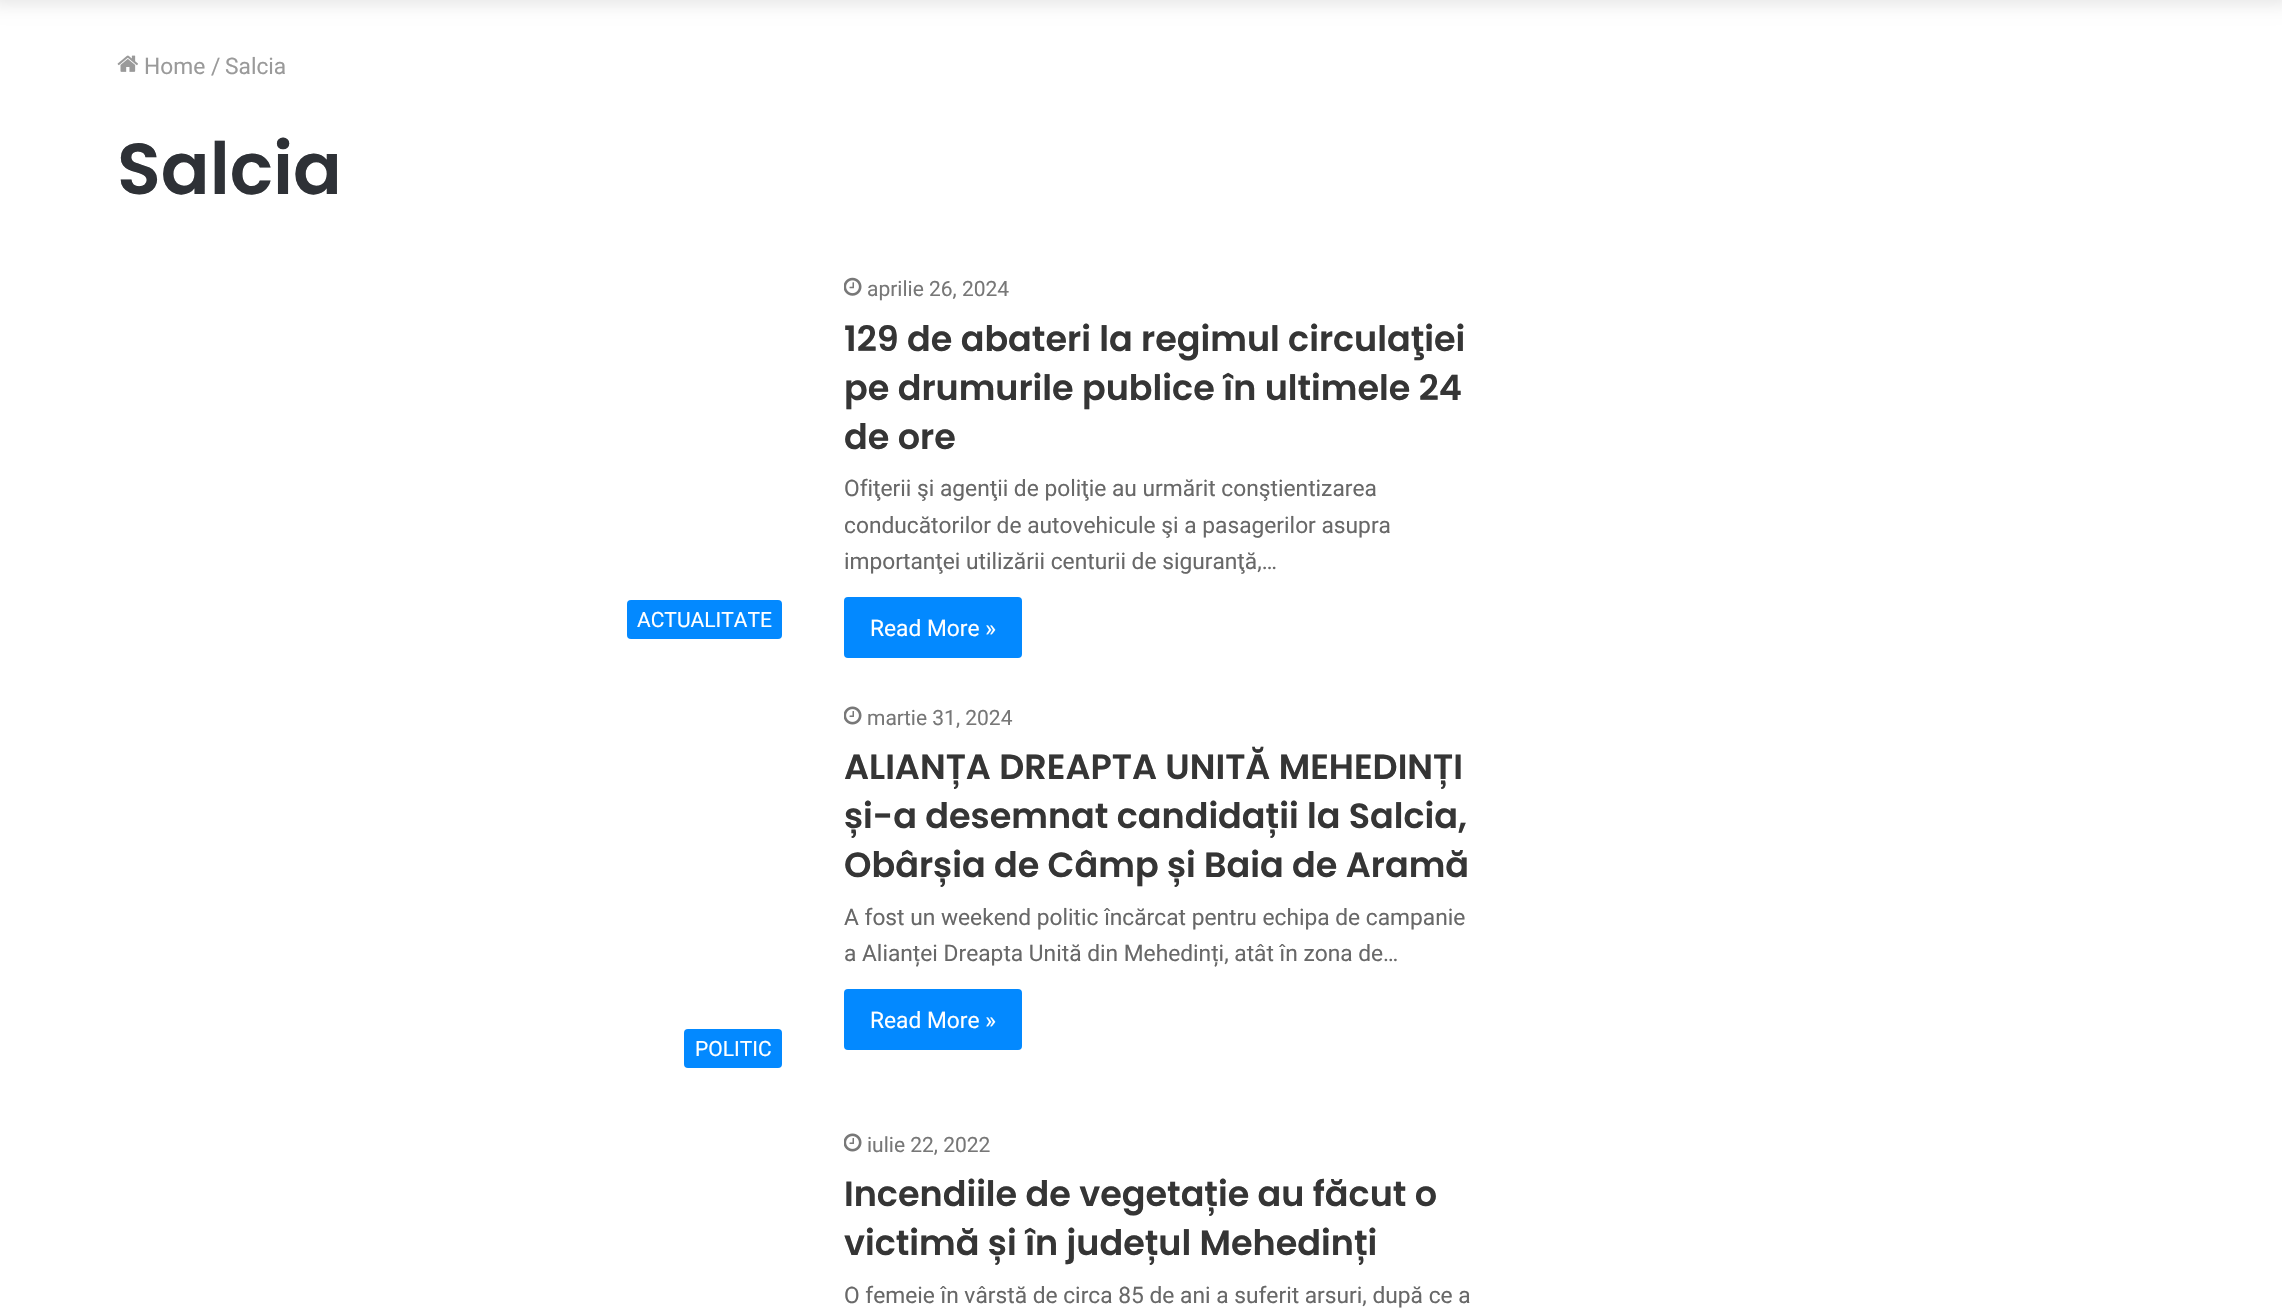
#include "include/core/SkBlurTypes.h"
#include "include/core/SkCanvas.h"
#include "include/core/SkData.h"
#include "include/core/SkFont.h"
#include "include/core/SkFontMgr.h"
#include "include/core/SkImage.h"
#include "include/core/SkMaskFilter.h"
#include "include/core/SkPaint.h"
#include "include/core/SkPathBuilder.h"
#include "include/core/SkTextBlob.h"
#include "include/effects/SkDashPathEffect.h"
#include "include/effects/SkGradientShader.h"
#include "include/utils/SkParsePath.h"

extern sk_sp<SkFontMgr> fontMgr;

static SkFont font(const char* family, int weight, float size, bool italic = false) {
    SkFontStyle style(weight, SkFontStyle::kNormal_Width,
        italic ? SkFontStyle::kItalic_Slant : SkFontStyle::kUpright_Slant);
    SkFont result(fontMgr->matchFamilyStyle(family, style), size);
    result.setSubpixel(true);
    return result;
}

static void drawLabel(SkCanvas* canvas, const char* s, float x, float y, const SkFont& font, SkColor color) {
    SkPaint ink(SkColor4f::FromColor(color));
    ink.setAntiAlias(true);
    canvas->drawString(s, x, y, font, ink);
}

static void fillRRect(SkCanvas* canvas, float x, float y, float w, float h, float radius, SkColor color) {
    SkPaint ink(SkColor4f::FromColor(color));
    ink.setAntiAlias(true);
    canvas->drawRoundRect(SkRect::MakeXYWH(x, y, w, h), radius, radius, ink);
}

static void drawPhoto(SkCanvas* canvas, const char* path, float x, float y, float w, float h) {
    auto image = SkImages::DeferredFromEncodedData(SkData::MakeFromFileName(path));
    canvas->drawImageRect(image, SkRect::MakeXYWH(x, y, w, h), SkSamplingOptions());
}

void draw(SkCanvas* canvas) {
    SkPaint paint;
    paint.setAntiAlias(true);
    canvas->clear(0xFFFFFFFF);
    paint.setColor(0x1A000000);
    paint.setMaskFilter(SkMaskFilter::MakeBlur(kNormal_SkBlurStyle, 9));
    canvas->drawRect(SkRect::MakeXYWH(-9, -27, 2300, 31), paint);
    paint.setMaskFilter(nullptr);
    drawPhoto(canvas, "assets/img1.png", 117, 55, 21, 17);
    SkFont font1 = font("Roboto", 400, 22.75f);
    drawLabel(canvas, "Home", 144, 74, font1, 0xFF9A9A9A);
    drawLabel(canvas, "/", 211, 74, font1, 0xFF9A9A9A);
    drawLabel(canvas, "Salcia", 225, 74, font1, 0xFF9A9A9A);
    SkFont font2 = font("Poppins", 600, 72);
    drawLabel(canvas, "Salcia", 117, 194, font2, 0xFF2E3136);
    fillRRect(canvas, 627, 600, 155, 39, 4, 0xFF0389FF);
    SkFont font3 = font("Roboto", 400, 21);
    drawLabel(canvas, "ACTUALITATE", 637, 627, font3, 0xFFFFFFFF);
    drawPhoto(canvas, "assets/img2.png", 844, 277, 18, 19);
    drawLabel(canvas, "aprilie 26, 2024", 867, 296, font3, 0xFF777777);
    SkFont font4 = font("Poppins", 600, 35);
    drawLabel(canvas, "129 de abateri la regimul circulaţiei", 844, 351, font4, 0xFF353535);
    drawLabel(canvas, "pe drumurile publice în ultimele 24", 844, 400, font4, 0xFF353535);
    drawLabel(canvas, "de ore", 844, 449, font4, 0xFF353535);
    drawLabel(canvas, "Ofiţerii şi agenţii de poliţie au urmărit conştientizarea", 844, 496, font1, 0xFF686868);
    drawLabel(canvas, "conducătorilor de autovehicule şi a pasagerilor asupra", 844, 533, font1, 0xFF686868);
    drawLabel(canvas, "importanţei utilizării centurii de siguranţă,…", 844, 569, font1, 0xFF686868);
    fillRRect(canvas, 844, 597, 178, 61, 4, 0xFF0389FF);
    drawLabel(canvas, "Read More »", 870, 636, font1, 0xFFFFFFFF);
    drawPhoto(canvas, "assets/img3.png", 844, 706, 18, 19);
    drawLabel(canvas, "martie 31, 2024", 867, 725, font3, 0xFF777777);
    drawLabel(canvas, "ALIANȚA DREAPTA UNITĂ MEHEDINȚI", 844, 779, font4, 0xFF353535);
    drawLabel(canvas, "și-a desemnat candidații la Salcia,", 844, 828, font4, 0xFF353535);
    drawLabel(canvas, "Obârșia de Câmp și Baia de Aramă", 844, 877, font4, 0xFF353535);
    drawLabel(canvas, "A fost un weekend politic încărcat pentru echipa de campanie", 844, 925, font1, 0xFF686868);
    drawLabel(canvas, "a Alianței Dreapta Unită din Mehedinți, atât în zona de…", 844, 961, font1, 0xFF686868);
    fillRRect(canvas, 844, 989, 178, 61, 4, 0xFF0389FF);
    drawLabel(canvas, "Read More »", 870, 1028, font1, 0xFFFFFFFF);
    fillRRect(canvas, 684, 1029, 98, 39, 4, 0xFF0389FF);
    drawLabel(canvas, "POLITIC", 695, 1056, font3, 0xFFFFFFFF);
    drawPhoto(canvas, "assets/img3.png", 844, 1133, 18, 19);
    drawLabel(canvas, "iulie 22, 2022", 867, 1152, font3, 0xFF777777);
    drawLabel(canvas, "Incendiile de vegetație au făcut o", 844, 1206, font4, 0xFF353535);
    drawLabel(canvas, "victimă și în județul Mehedinți", 844, 1255, font4, 0xFF353535);
    drawLabel(canvas, "O femeie în vârstă de circa 85 de ani a suferit arsuri, după ce a", 844, 1303, font1, 0xFF686868);
}
